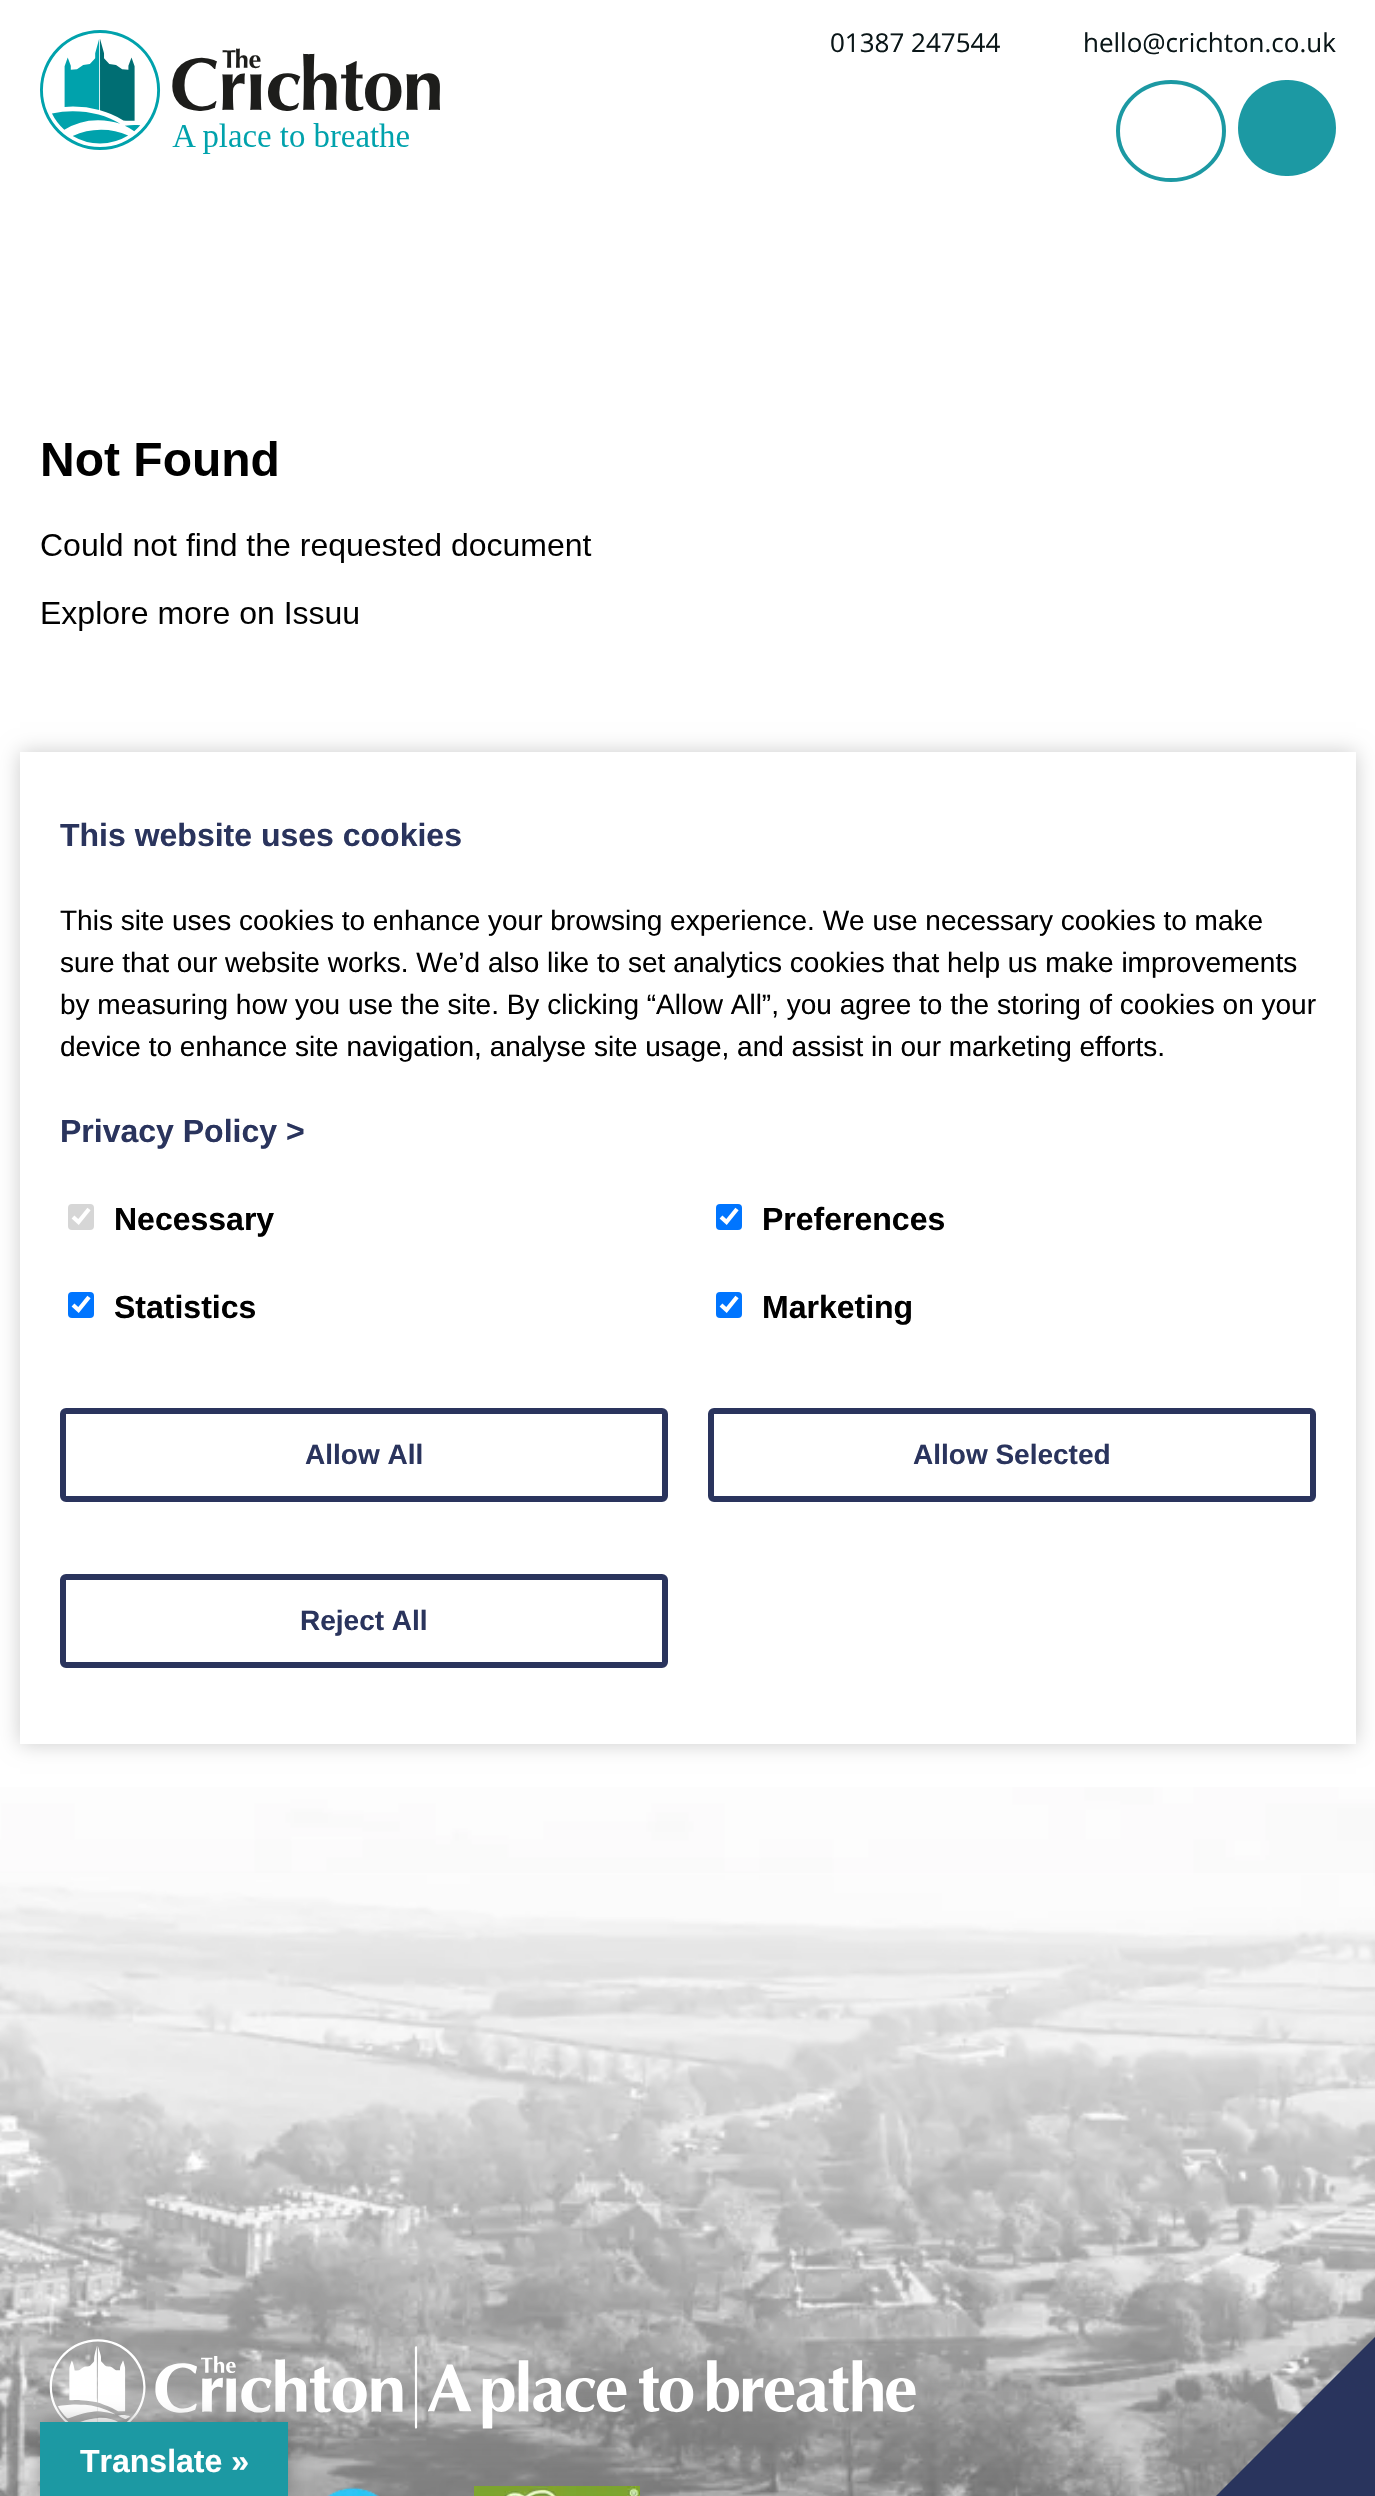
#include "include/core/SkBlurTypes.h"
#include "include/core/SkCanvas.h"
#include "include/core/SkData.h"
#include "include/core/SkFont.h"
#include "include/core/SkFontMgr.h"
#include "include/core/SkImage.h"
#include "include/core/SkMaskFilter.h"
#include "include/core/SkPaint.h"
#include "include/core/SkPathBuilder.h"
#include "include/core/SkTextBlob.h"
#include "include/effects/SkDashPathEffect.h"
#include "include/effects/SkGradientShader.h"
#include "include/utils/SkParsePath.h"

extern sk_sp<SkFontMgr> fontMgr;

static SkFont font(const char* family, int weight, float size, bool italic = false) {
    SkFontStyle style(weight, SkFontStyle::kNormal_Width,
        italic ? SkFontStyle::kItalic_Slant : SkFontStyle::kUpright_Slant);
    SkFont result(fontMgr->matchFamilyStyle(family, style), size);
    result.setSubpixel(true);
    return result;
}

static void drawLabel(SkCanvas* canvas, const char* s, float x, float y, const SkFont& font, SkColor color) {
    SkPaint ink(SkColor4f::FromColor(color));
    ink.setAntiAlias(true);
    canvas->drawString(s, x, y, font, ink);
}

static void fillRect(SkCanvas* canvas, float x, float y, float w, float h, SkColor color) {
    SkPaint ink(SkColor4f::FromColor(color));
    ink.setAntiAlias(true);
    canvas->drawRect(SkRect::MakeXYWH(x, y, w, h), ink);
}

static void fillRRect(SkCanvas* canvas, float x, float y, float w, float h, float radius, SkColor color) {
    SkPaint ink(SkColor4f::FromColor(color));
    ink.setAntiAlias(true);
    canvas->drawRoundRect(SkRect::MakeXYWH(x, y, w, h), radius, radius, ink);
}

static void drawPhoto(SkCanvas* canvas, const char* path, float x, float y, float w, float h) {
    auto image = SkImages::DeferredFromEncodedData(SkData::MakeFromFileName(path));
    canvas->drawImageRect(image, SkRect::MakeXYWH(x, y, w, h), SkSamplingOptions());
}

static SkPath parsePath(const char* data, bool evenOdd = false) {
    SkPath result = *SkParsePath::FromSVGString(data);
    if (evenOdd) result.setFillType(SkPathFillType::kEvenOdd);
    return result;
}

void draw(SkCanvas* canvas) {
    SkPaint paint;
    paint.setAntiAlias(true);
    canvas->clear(0xFFFFFFFF);
    drawPhoto(canvas, "assets/img1.png", 40, 30, 400, 124);
    SkFont font1 = font("Open Sans", 400, 26);
    drawLabel(canvas, "01387 247544", 830, 52, font1, 0xFF0A1618);
    drawLabel(canvas, "hello@crichton.co.uk", 1083, 52, font1, 0xFF0A1618);
    paint.setStroke(true);
    paint.setStrokeWidth(4);
    paint.setColor(0xFF1C99A3);
    canvas->drawPath(parsePath("M1171 82C1200.5 82 1224 104 1224 131C1224 158 1200.5 180 1171 180C1141.5 180 1118 158 1118 131C1118 104 1141.5 82 1171 82Z"), paint);
    fillRRect(canvas, 1238, 80, 98, 96, 48, 0xFF1C99A3);
    drawPhoto(canvas, "assets/img2.png", 41, 441, 551, 190);
    drawPhoto(canvas, "assets/img3.png", 0, 1787, 1375, 709);
    paint.setStroke(false);
    paint.setColor(0x33000000);
    paint.setMaskFilter(SkMaskFilter::MakeBlur(kNormal_SkBlurStyle, 10));
    canvas->drawRect(SkRect::MakeXYWH(20, 752, 1336, 992), paint);
    paint.setMaskFilter(nullptr);
    fillRect(canvas, 20, 752, 1336, 992, 0xFFFFFFFF);
    SkFont font2 = font("Liberation Sans", 700, 32);
    drawLabel(canvas, "This website uses cookies", 60, 846, font2, 0xFF2A345D);
    SkFont font3 = font("Liberation Sans", 400, 28);
    drawLabel(canvas, "This site uses cookies to enhance your browsing experience. We use necessary cookies to make", 60, 930, font3, 0xFF000000);
    drawLabel(canvas, "sure that our website works. We’d also like to set analytics cookies that help us make improvements", 60, 972, font3, 0xFF000000);
    drawLabel(canvas, "by measuring how you use the site. By clicking “Allow All”, you agree to the storing of cookies on your", 60, 1014, font3, 0xFF000000);
    drawLabel(canvas, "device to enhance site navigation, analyse site usage, and assist in our marketing efforts.", 60, 1056, font3, 0xFF000000);
    drawLabel(canvas, "Privacy Policy >", 60, 1142, font2, 0xFF2A345D);
    fillRRect(canvas, 68, 1204, 26, 26, 4, 0xFFD6D6D6);
    paint.setStroke(true);
    paint.setStrokeWidth(4.2f);
    paint.setColor(0xFFFFFFFF);
    canvas->drawPath(parsePath("M73 1217L78.5 1222L89 1209"), paint);
    drawLabel(canvas, "Necessary", 114, 1230, font2, 0xFF000000);
    fillRRect(canvas, 716, 1204, 26, 26, 4, 0xFF0075FF);
    canvas->drawPath(parsePath("M721 1217L726.5 1222L737 1209"), paint);
    drawLabel(canvas, "Preferences", 762, 1230, font2, 0xFF000000);
    fillRRect(canvas, 68, 1292, 26, 26, 4, 0xFF0075FF);
    canvas->drawPath(parsePath("M73 1305L78.5 1310L89 1297"), paint);
    drawLabel(canvas, "Statistics", 114, 1318, font2, 0xFF000000);
    fillRRect(canvas, 716, 1292, 26, 26, 4, 0xFF0075FF);
    canvas->drawPath(parsePath("M721 1305L726.5 1310L737 1297"), paint);
    drawLabel(canvas, "Marketing", 762, 1318, font2, 0xFF000000);
    paint.setStrokeWidth(6);
    paint.setColor(0xFF2A345D);
    canvas->drawRoundRect(SkRect::MakeXYWH(63, 1411, 602, 88), 3, 3, paint);
    SkFont font4 = font("Liberation Sans", 700, 28);
    drawLabel(canvas, "Allow All", 305, 1464, font4, 0xFF2A345D);
    canvas->drawRoundRect(SkRect::MakeXYWH(711, 1411, 602, 88), 3, 3, paint);
    drawLabel(canvas, "Allow Selected", 913, 1464, font4, 0xFF2A345D);
    canvas->drawRoundRect(SkRect::MakeXYWH(63, 1577, 602, 88), 3, 3, paint);
    drawLabel(canvas, "Reject All", 300, 1630, font4, 0xFF2A345D);
    paint.setStroke(false);
    {
        const SkColor colors[] = {0xD9000000, 0x61FFFFFF};
        const float stops[] = {0.15f, 0.65f};
        const SkPoint ends[] = {{688, 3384}, {688, 1768}};
        paint.setShader(SkGradientShader::MakeLinear(ends, colors, stops, 2, SkTileMode::kClamp));
        paint.setAlpha(255);
    }
    canvas->drawRect(SkRect::MakeXYWH(0, 1873, 1375, 623), paint);
    drawPhoto(canvas, "assets/img4.png", 49, 2339, 867, 90);
    drawPhoto(canvas, "assets/img5.png", 327, 2487, 52, 9);
    drawPhoto(canvas, "assets/img6.png", 474, 2486, 166, 10);
    paint.setShader(nullptr);
    paint.setColor(0x4D000000);
    paint.setMaskFilter(SkMaskFilter::MakeBlur(kNormal_SkBlurStyle, 9));
    canvas->drawRect(SkRect::MakeXYWH(40, 2422, 248, 74), paint);
    paint.setMaskFilter(nullptr);
    fillRect(canvas, 40, 2422, 248, 74, 0xFF1C99A3);
    drawLabel(canvas, "Translate »", 80, 2472, font2, 0xFFFFFFFF);
    paint.setColor(0xFF29345D);
    canvas->drawPath(parsePath("M1216 2496H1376V2336Z"), paint);
}
